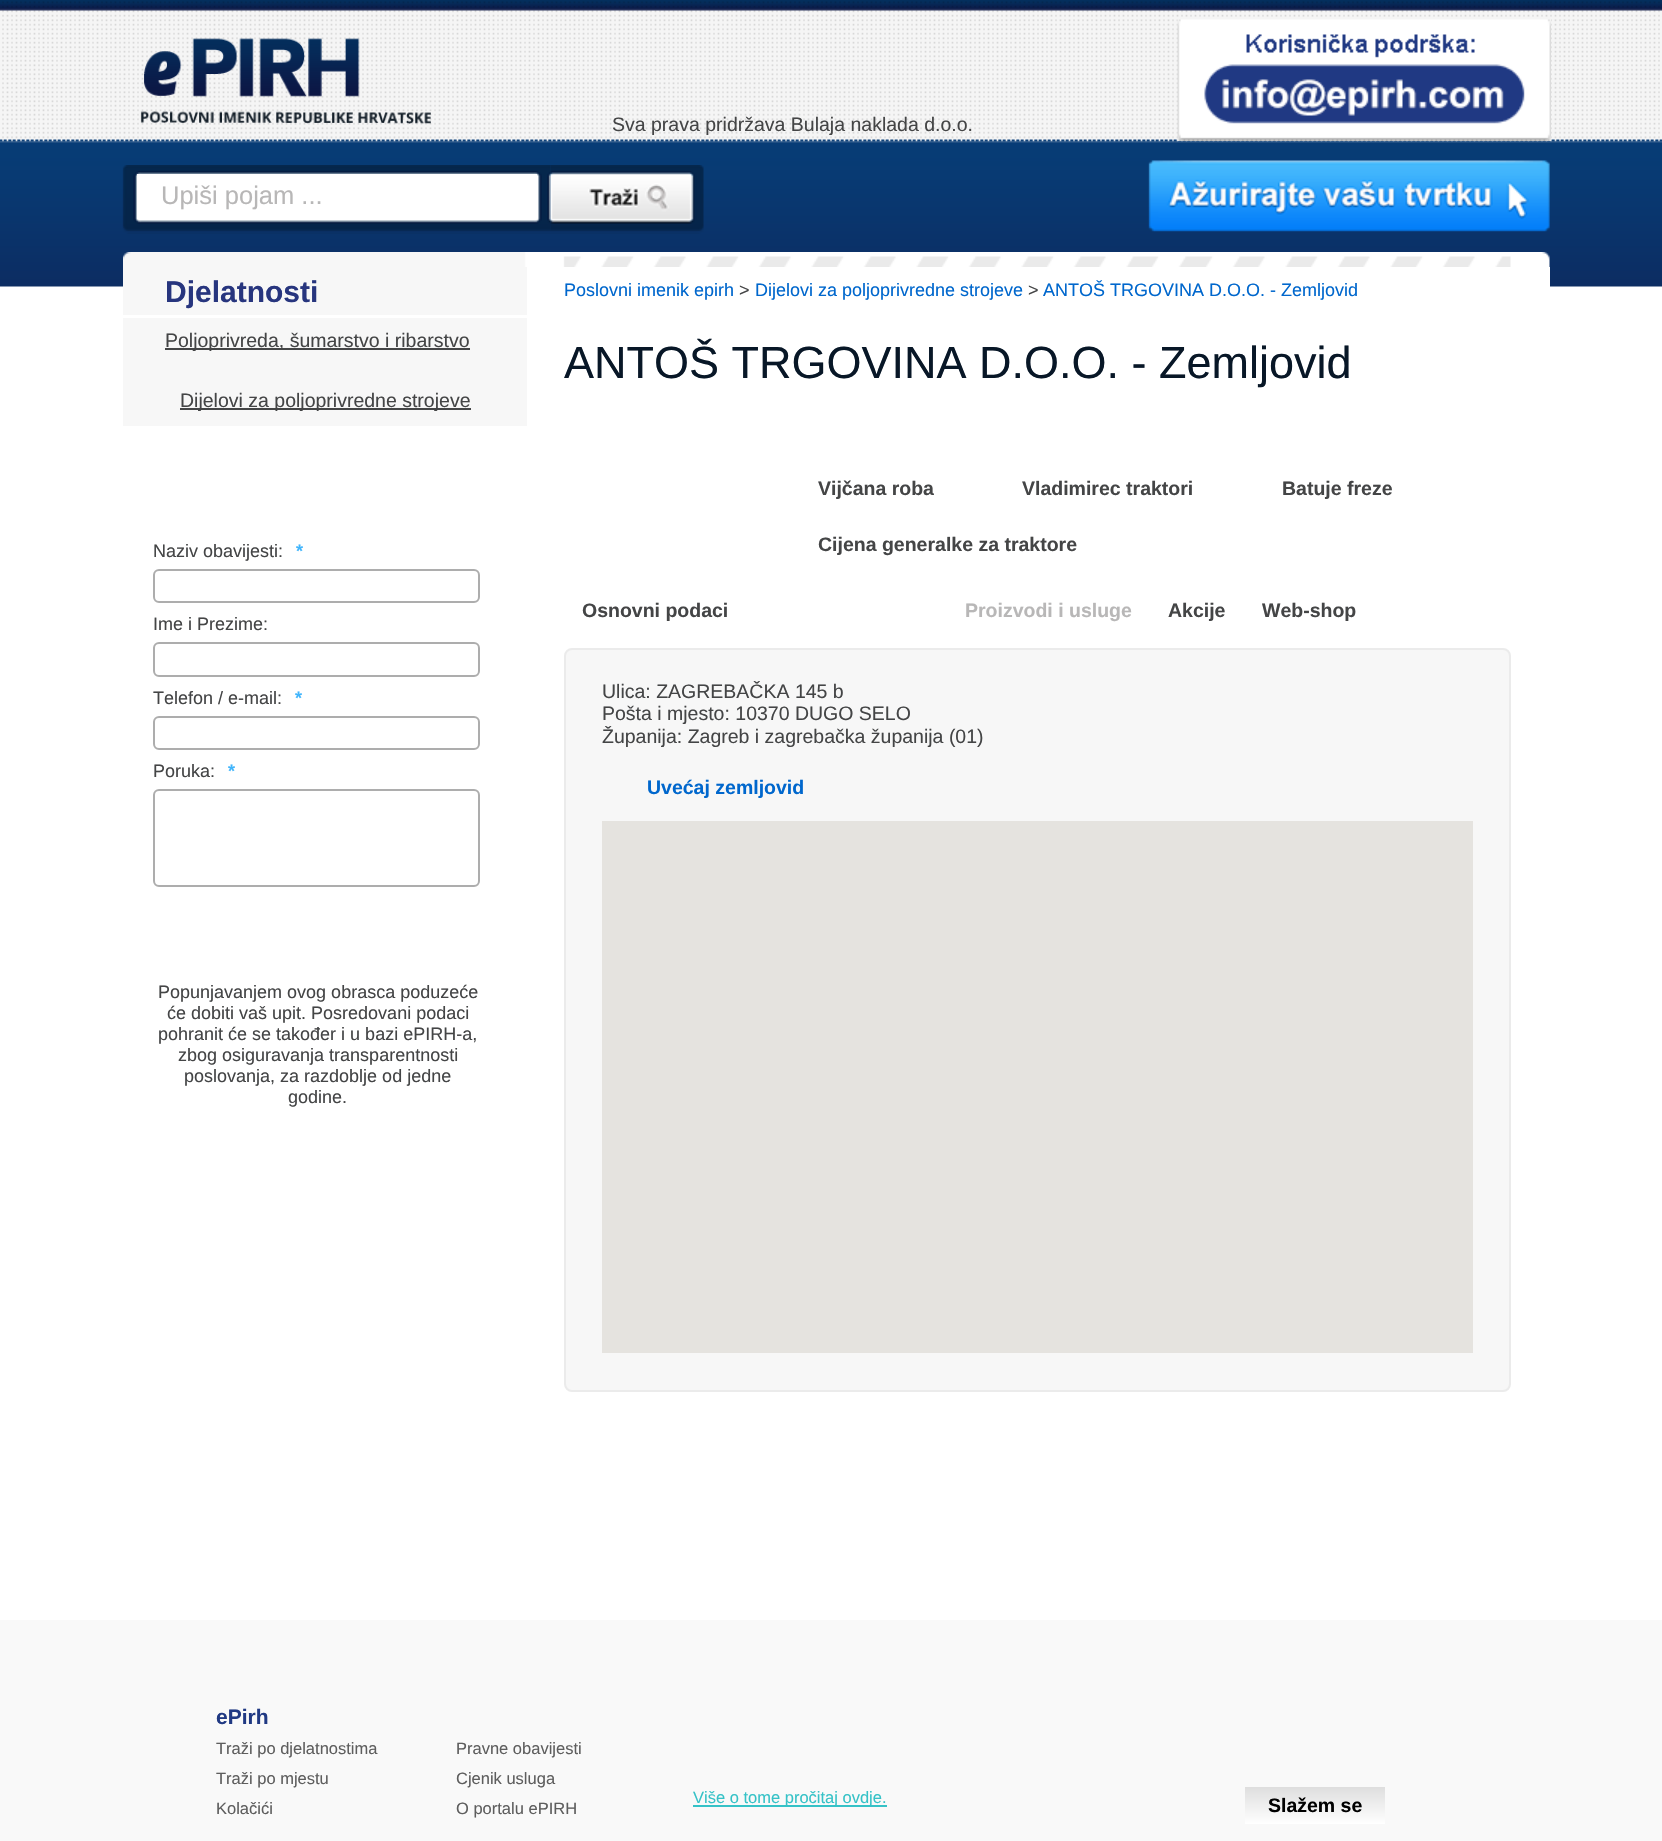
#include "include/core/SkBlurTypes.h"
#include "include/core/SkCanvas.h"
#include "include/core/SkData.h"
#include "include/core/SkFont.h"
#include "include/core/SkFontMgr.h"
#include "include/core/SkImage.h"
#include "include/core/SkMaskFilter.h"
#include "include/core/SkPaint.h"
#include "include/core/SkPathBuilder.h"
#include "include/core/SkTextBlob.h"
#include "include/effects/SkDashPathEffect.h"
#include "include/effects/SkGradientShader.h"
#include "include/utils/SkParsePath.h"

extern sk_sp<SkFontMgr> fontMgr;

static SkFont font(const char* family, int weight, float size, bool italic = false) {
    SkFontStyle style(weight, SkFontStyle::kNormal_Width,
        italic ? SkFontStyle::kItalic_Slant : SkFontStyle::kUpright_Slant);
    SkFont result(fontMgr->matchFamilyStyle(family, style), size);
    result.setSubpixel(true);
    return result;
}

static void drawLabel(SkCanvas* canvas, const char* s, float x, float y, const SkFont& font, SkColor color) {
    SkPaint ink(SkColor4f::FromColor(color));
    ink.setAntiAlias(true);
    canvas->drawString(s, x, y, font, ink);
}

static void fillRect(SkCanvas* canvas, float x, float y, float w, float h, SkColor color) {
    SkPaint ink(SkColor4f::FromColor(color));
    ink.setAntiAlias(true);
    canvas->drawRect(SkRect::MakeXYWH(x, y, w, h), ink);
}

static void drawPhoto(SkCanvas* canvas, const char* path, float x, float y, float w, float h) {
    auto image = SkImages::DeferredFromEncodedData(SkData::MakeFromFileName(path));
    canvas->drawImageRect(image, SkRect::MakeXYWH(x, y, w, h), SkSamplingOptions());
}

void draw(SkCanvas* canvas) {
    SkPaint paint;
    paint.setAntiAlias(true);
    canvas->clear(0xFFFFFFFF);
    drawPhoto(canvas, "assets/img1.png", 0, 0, 1662, 287);
    drawPhoto(canvas, "assets/img2.png", 140, 38, 291, 86);
    drawPhoto(canvas, "assets/img3.png", 1177, 19, 374, 122);
    SkFont font1 = font("Liberation Sans", 400, 19.5f);
    drawLabel(canvas, "Sva prava pridržava Bulaja naklada d.o.o.", 612, 131, font1, 0xFF444546);
    drawPhoto(canvas, "assets/img4.png", 122, 165, 429, 69);
    fillRect(canvas, 137, 174, 400, 45, 0xFFFFFFFF);
    SkFont font2 = font("Liberation Sans", 400, 25.5f);
    drawLabel(canvas, "Upiši pojam ...", 161, 204, font2, 0xFFB8B7B7);
    drawPhoto(canvas, "assets/img5.png", 550, 165, 154, 69);
    drawPhoto(canvas, "assets/img6.png", 1148, 160, 402, 72);
    drawPhoto(canvas, "assets/img7.png", 123, 252, 1427, 15);
    fillRect(canvas, 123, 267, 1427, 20, 0xFFFFFFFF);
    fillRect(canvas, 123, 267, 404, 159, 0xFFF7F7F7);
    fillRect(canvas, 123, 315, 404, 3, 0xFFFFFFFF);
    SkFont font3 = font("Liberation Sans", 700, 30);
    drawLabel(canvas, "Djelatnosti", 165, 302, font3, 0xFF27357E);
    fillRect(canvas, 165, 348, 305, 2, 0xFF444546);
    drawLabel(canvas, "Poljoprivreda, šumarstvo i ribarstvo", 165, 347, font1, 0xFF444546);
    fillRect(canvas, 180, 408, 291, 2, 0xFF444546);
    drawLabel(canvas, "Dijelovi za poljoprivredne strojeve", 180, 407, font1, 0xFF444546);
    SkFont font4 = font("Liberation Sans", 400, 18);
    drawLabel(canvas, "Naziv obavijesti:", 153, 557, font4, 0xFF444546);
    SkFont font5 = font("Liberation Sans", 700, 18);
    drawLabel(canvas, "*", 296, 557, font5, 0xFF41B5FC);
    paint.setStroke(true);
    paint.setStrokeWidth(2);
    paint.setColor(0xFFADADAD);
    canvas->drawRoundRect(SkRect::MakeXYWH(154, 570, 325, 32), 5, 5, paint);
    drawLabel(canvas, "Ime i Prezime:", 153, 630, font4, 0xFF444546);
    canvas->drawRoundRect(SkRect::MakeXYWH(154, 643, 325, 33), 5, 5, paint);
    drawLabel(canvas, "Telefon / e-mail:", 153, 704, font4, 0xFF444546);
    drawLabel(canvas, "*", 295, 704, font5, 0xFF41B5FC);
    canvas->drawRoundRect(SkRect::MakeXYWH(154, 717, 325, 32), 5, 5, paint);
    drawLabel(canvas, "Poruka:", 153, 777, font4, 0xFF444546);
    drawLabel(canvas, "*", 228, 777, font5, 0xFF41B5FC);
    canvas->drawRoundRect(SkRect::MakeXYWH(154, 790, 325, 96), 5, 5, paint);
    drawLabel(canvas, "Popunjavanjem ovog obrasca poduzeće", 158, 998, font4, 0xFF444546);
    drawLabel(canvas, "će dobiti vaš upit. Posredovani podaci", 167, 1019, font4, 0xFF444546);
    drawLabel(canvas, "pohranit će se također i u bazi ePIRH-a,", 158, 1040, font4, 0xFF444546);
    drawLabel(canvas, "zbog osiguravanja transparentnosti", 178, 1061, font4, 0xFF444546);
    drawLabel(canvas, "poslovanja, za razdoblje od jedne", 184, 1082, font4, 0xFF444546);
    drawLabel(canvas, "godine.", 288, 1103, font4, 0xFF444546);
    drawLabel(canvas, "Poslovni imenik epirh", 564, 296, font4, 0xFF0067CD);
    drawLabel(canvas, ">", 739, 296, font4, 0xFF444546);
    drawLabel(canvas, "Dijelovi za poljoprivredne strojeve", 755, 296, font4, 0xFF0067CD);
    drawLabel(canvas, ">", 1028, 296, font4, 0xFF444546);
    drawLabel(canvas, "ANTOŠ TRGOVINA D.O.O. - Zemljovid", 1043, 296, font4, 0xFF0067CD);
    SkFont font6 = font("Liberation Sans", 400, 45);
    drawLabel(canvas, "ANTOŠ TRGOVINA D.O.O. - Zemljovid", 564, 378, font6, 0xFF081727);
    SkFont font7 = font("Liberation Sans", 700, 19.5f);
    drawLabel(canvas, "Vijčana roba", 818, 495, font7, 0xFF444546);
    drawLabel(canvas, "Vladimirec traktori", 1022, 495, font7, 0xFF444546);
    drawLabel(canvas, "Batuje freze", 1282, 495, font7, 0xFF444546);
    drawLabel(canvas, "Cijena generalke za traktore", 818, 551, font7, 0xFF444546);
    drawLabel(canvas, "Osnovni podaci", 582, 617, font7, 0xFF444546);
    drawLabel(canvas, "Proizvodi i usluge", 965, 617, font7, 0xFFB8B7B7);
    drawLabel(canvas, "Akcije", 1168, 617, font7, 0xFF444546);
    drawLabel(canvas, "Web-shop", 1262, 617, font7, 0xFF444546);
    paint.setStroke(false);
    paint.setColor(0xFFF7F7F7);
    canvas->drawRoundRect(SkRect::MakeXYWH(565, 649, 945, 742), 7, 7, paint);
    paint.setStroke(true);
    paint.setColor(0xFFEBEBEB);
    canvas->drawRoundRect(SkRect::MakeXYWH(565, 649, 945, 742), 7, 7, paint);
    drawLabel(canvas, "Ulica: ZAGREBAČKA 145 b", 602, 698, font1, 0xFF444546);
    drawLabel(canvas, "Pošta i mjesto: 10370 DUGO SELO", 602, 720, font1, 0xFF444546);
    drawLabel(canvas, "Županija: Zagreb i zagrebačka županija (01)", 602, 743, font1, 0xFF444546);
    drawLabel(canvas, "Uvećaj zemljovid", 647, 794, font7, 0xFF0067CD);
    fillRect(canvas, 602, 821, 871, 532, 0xFFE5E3DF);
    fillRect(canvas, 0, 1620, 1662, 221, 0xFFF9F9F9);
    SkFont font8 = font("Liberation Sans", 700, 21);
    drawLabel(canvas, "ePirh", 216, 1724, font8, 0xFF203983);
    SkFont font9 = font("Liberation Sans", 400, 16.5f);
    drawLabel(canvas, "Traži po djelatnostima", 216, 1754, font9, 0xFF5E5E5E);
    drawLabel(canvas, "Traži po mjestu", 216, 1784, font9, 0xFF5E5E5E);
    drawLabel(canvas, "Kolačići", 216, 1814, font9, 0xFF5E5E5E);
    drawLabel(canvas, "Pravne obavijesti", 456, 1754, font9, 0xFF5E5E5E);
    drawLabel(canvas, "Cjenik usluga", 456, 1784, font9, 0xFF5E5E5E);
    drawLabel(canvas, "O portalu ePIRH", 456, 1814, font9, 0xFF5E5E5E);
    fillRect(canvas, 693, 1805, 194, 2, 0xFF35C2C7);
    drawLabel(canvas, "Više o tome pročitaj ovdje.", 693, 1803, font9, 0xFF35C2C7);
    paint.setStroke(false);
    {
        const SkColor colors[] = {0xFFDEDEDE, 0xFFFFFFFF};
        const float stops[] = {0, 1};
        const SkPoint ends[] = {{1315, 1787}, {1315, 1824}};
        paint.setShader(SkGradientShader::MakeLinear(ends, colors, stops, 2, SkTileMode::kClamp));
        paint.setAlpha(255);
    }
    canvas->drawRect(SkRect::MakeXYWH(1245, 1787, 140, 37), paint);
    drawLabel(canvas, "Slažem se", 1268, 1812, font7, 0xFF000000);
}
